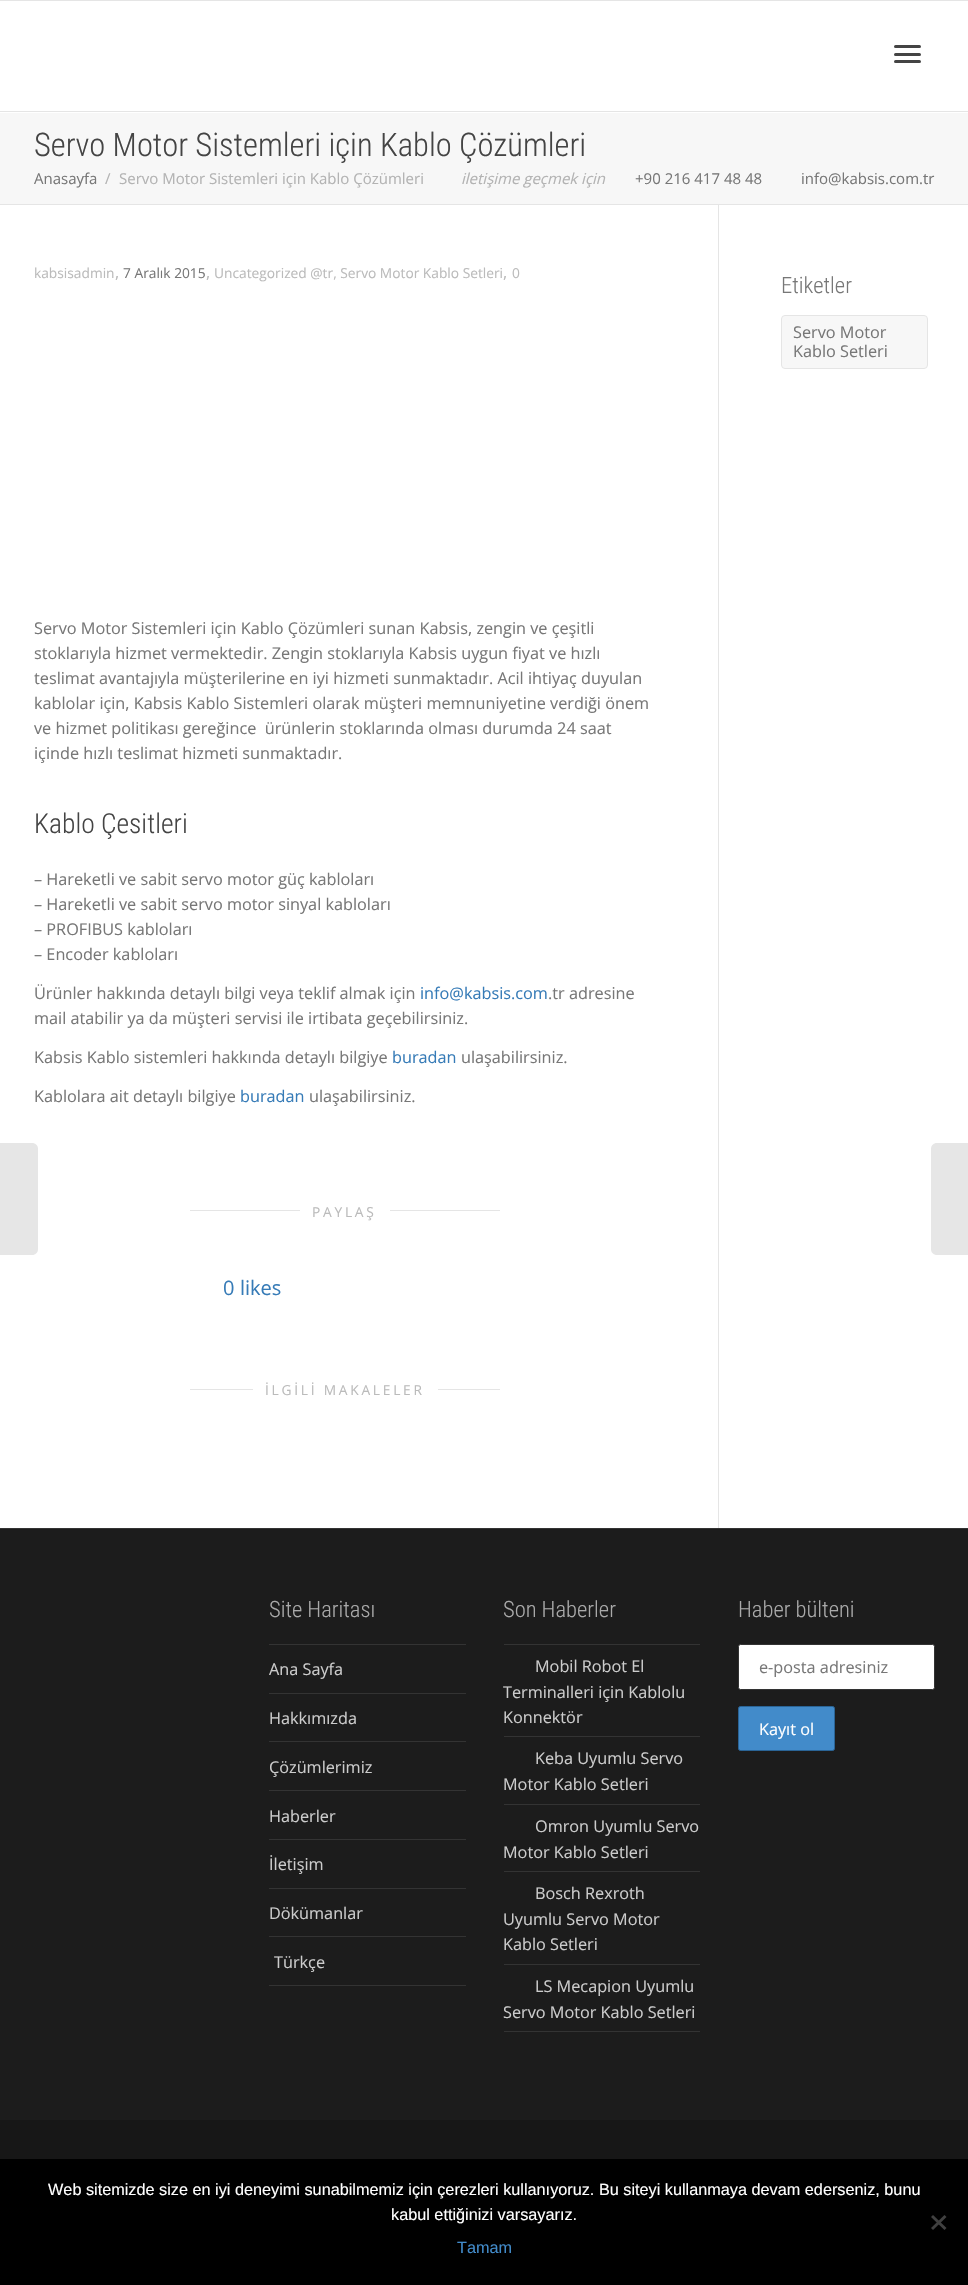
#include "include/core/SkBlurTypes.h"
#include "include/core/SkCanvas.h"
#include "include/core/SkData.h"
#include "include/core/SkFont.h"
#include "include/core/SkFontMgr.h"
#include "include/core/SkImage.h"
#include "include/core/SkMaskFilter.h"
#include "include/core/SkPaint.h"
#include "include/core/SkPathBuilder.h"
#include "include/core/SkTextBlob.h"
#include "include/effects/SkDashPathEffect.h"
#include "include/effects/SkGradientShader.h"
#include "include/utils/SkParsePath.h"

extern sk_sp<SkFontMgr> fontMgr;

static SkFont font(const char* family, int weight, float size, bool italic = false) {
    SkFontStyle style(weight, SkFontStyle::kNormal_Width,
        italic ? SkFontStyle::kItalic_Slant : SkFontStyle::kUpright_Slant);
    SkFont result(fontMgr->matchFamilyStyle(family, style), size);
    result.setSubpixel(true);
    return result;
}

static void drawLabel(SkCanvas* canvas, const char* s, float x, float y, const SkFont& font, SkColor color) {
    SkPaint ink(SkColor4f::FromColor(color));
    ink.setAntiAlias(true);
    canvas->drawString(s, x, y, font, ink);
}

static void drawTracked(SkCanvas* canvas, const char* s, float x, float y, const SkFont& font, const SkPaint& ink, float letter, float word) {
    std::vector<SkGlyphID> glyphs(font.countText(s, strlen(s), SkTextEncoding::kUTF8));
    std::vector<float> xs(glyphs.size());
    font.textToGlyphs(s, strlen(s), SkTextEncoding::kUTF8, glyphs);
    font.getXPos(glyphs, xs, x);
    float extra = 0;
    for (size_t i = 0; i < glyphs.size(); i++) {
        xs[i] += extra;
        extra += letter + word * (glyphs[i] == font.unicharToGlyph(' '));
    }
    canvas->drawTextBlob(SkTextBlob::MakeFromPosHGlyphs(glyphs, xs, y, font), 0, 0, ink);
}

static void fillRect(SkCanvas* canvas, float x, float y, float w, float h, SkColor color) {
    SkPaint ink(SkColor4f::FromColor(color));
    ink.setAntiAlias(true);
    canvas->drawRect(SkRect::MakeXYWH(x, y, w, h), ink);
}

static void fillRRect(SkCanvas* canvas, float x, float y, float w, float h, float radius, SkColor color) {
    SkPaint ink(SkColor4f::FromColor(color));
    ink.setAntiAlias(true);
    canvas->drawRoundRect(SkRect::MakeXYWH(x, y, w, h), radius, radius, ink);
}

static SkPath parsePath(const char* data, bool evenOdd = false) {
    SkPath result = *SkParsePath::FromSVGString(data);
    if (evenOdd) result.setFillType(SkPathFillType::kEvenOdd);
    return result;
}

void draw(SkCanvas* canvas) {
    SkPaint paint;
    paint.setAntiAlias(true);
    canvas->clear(0xFFFFFFFF);
    fillRect(canvas, 0, 0, 968, 1, 0xFFE5E5E5);
    fillRect(canvas, 0, 111, 968, 1, 0xFFE5E5E5);
    fillRRect(canvas, 894, 45, 27, 3, 1.5f, 0xFF444444);
    fillRRect(canvas, 894, 53, 27, 3, 1.5f, 0xFF444444);
    fillRRect(canvas, 894, 60, 27, 3, 1.5f, 0xFF444444);
    fillRect(canvas, 0, 113, 968, 91, 0xFFF7F7F7);
    fillRect(canvas, 0, 204, 968, 1, 0xFFE5E5E5);
    SkFont font1 = font("Roboto Condensed", 300, 32.5f);
    drawLabel(canvas, "Servo Motor Sistemleri için Kablo Çözümleri", 34, 156, font1, 0xFF444444);
    SkFont font2 = font("Open Sans", 400, 15);
    drawLabel(canvas, "Anasayfa", 34, 184, font2, 0xFF777777);
    drawLabel(canvas, "/", 105, 184, font2, 0xFFB3B3B3);
    drawLabel(canvas, "Servo Motor Sistemleri için Kablo Çözümleri", 119, 184, font2, 0xFFB3B3B3);
    SkFont font3 = font("Open Sans", 400, 15, true);
    drawLabel(canvas, "iletişime geçmek için", 461, 184, font3, 0xFFB3B3B3);
    drawLabel(canvas, "+90 216 417 48 48", 635, 184, font2, 0xFF777777);
    drawLabel(canvas, "info@kabsis.com.tr", 801, 184, font2, 0xFF777777);
    fillRect(canvas, 718, 205, 1, 1323, 0xFFE5E5E5);
    SkFont font4 = font("Open Sans", 400, 13.75f);
    drawLabel(canvas, "kabsisadmin", 34, 278, font4, 0xFFBBBBBB);
    SkFont font5 = font("Open Sans", 400, 16.25f);
    drawLabel(canvas, ",", 115, 278, font5, 0xFFBBBBBB);
    drawLabel(canvas, "7 Aralık 2015", 123, 278, font4, 0xFF777777);
    drawLabel(canvas, ",", 206, 278, font5, 0xFFBBBBBB);
    drawLabel(canvas, "Uncategorized @tr, Servo Motor Kablo Setleri", 214, 278, font4, 0xFFBBBBBB);
    drawLabel(canvas, ",", 503, 278, font5, 0xFFBBBBBB);
    drawLabel(canvas, "0", 512, 278, font4, 0xFFBBBBBB);
    drawLabel(canvas, "Servo Motor Sistemleri için Kablo Çözümleri sunan Kabsis, zengin ve çeşitli", 34, 634, font5, 0xFF777777);
    drawLabel(canvas, "stoklarıyla hizmet vermektedir. Zengin stoklarıyla Kabsis uygun fiyat ve hızlı", 34, 659, font5, 0xFF777777);
    drawLabel(canvas, "teslimat avantajıyla müşterilerine en iyi hizmeti sunmaktadır. Acil ihtiyaç duyulan", 34, 684, font5, 0xFF777777);
    drawLabel(canvas, "kablolar için, Kabsis Kablo Sistemleri olarak müşteri memnuniyetine verdiği önem", 34, 709, font5, 0xFF777777);
    drawLabel(canvas, "ve hizmet politikası gereğince  ürünlerin stoklarında olması durumda 24 saat", 34, 734, font5, 0xFF777777);
    drawLabel(canvas, "içinde hızlı teslimat hizmeti sunmaktadır.", 34, 759, font5, 0xFF777777);
    SkFont font6 = font("Roboto Condensed", 300, 27.5f);
    drawLabel(canvas, "Kablo Çesitleri", 34, 833, font6, 0xFF444444);
    drawLabel(canvas, "– Hareketli ve sabit servo motor güç kabloları", 34, 885, font5, 0xFF777777);
    drawLabel(canvas, "– Hareketli ve sabit servo motor sinyal kabloları", 34, 910, font5, 0xFF777777);
    drawLabel(canvas, "– PROFIBUS kabloları", 34, 935, font5, 0xFF777777);
    drawLabel(canvas, "– Encoder kabloları", 34, 960, font5, 0xFF777777);
    drawLabel(canvas, "Ürünler hakkında detaylı bilgi veya teklif almak için", 34, 999, font5, 0xFF777777);
    drawLabel(canvas, "info@kabsis.com", 420, 999, font5, 0xFF367BB7);
    drawLabel(canvas, ".tr adresine", 548, 999, font5, 0xFF777777);
    drawLabel(canvas, "mail atabilir ya da müşteri servisi ile irtibata geçebilirsiniz.", 34, 1024, font5, 0xFF777777);
    drawLabel(canvas, "Kabsis Kablo sistemleri hakkında detaylı bilgiye", 34, 1063, font5, 0xFF777777);
    drawLabel(canvas, "buradan", 392, 1063, font5, 0xFF367BB7);
    drawLabel(canvas, "ulaşabilirsiniz.", 461, 1063, font5, 0xFF777777);
    drawLabel(canvas, "Kablolara ait detaylı bilgiye", 34, 1102, font5, 0xFF777777);
    drawLabel(canvas, "buradan", 240, 1102, font5, 0xFF367BB7);
    drawLabel(canvas, "ulaşabilirsiniz.", 309, 1102, font5, 0xFF777777);
    paint.setColor(0xFFE6E6E6);
    canvas->drawPath(parsePath("M-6 1143H32C35.5 1143 38 1145.5 38 1149V1249C38 1252.5 35.5 1255 32 1255H-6Z"), paint);
    canvas->drawPath(parsePath("M937 1143H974V1255H937C933.5 1255 931 1252.5 931 1249V1149C931 1145.5 933.5 1143 937 1143Z"), paint);
    fillRect(canvas, 190, 1210, 310, 1, 0xFFE5E5E5);
    fillRRect(canvas, 300, 1199, 90, 24, 2.5f, 0xFFFFFFFF);
    paint.setColor(0xFFBBBBBB);
    drawTracked(canvas, "PAYLAŞ", 312, 1217, font4, paint, 2.75f, 0);
    SkFont font7 = font("Open Sans", 400, 20);
    drawLabel(canvas, "0", 223, 1295, font7, 0xFF367BB7);
    drawLabel(canvas, "likes", 240, 1295, font7, 0xFF367BB7);
    fillRect(canvas, 190, 1389, 310, 1, 0xFFE5E5E5);
    fillRRect(canvas, 253, 1378, 185, 23, 2.5f, 0xFFFFFFFF);
    drawTracked(canvas, "İLGİLİ MAKALELER", 265, 1395, font4, paint, 2.75f, 0);
    SkFont font8 = font("Roboto Condensed", 300, 22.5f);
    drawLabel(canvas, "Etiketler", 781, 293, font8, 0xFF777777);
    paint.setColor(0xFFF7F7F7);
    canvas->drawRoundRect(SkRect::MakeXYWH(781.5f, 315.5f, 146, 53), 3.5f, 3.5f, paint);
    paint.setStroke(true);
    paint.setStrokeWidth(1);
    paint.setColor(0xFFE5E5E5);
    canvas->drawRoundRect(SkRect::MakeXYWH(781.5f, 315.5f, 146, 53), 3.5f, 3.5f, paint);
    drawLabel(canvas, "Servo Motor", 793, 338, font5, 0xFF777777);
    drawLabel(canvas, "Kablo Setleri", 793, 357, font5, 0xFF777777);
    fillRect(canvas, 0, 1529, 968, 591, 0xFF1C1C1C);
    fillRect(canvas, 0, 1528, 968, 1, 0xFF333333);
    drawLabel(canvas, "Site Haritası", 269, 1617, font8, 0xFFAAAAAA);
    fillRect(canvas, 269, 1644, 197, 1, 0xFF333333);
    fillRect(canvas, 269, 1693, 197, 1, 0xFF333333);
    drawLabel(canvas, "Ana Sayfa", 269, 1675, font5, 0xFFCCCCCC);
    fillRect(canvas, 269, 1741, 197, 1, 0xFF333333);
    drawLabel(canvas, "Hakkımızda", 269, 1724, font5, 0xFFCCCCCC);
    fillRect(canvas, 269, 1790, 197, 1, 0xFF333333);
    drawLabel(canvas, "Çözümlerimiz", 269, 1773, font5, 0xFFCCCCCC);
    fillRect(canvas, 269, 1839, 197, 1, 0xFF333333);
    drawLabel(canvas, "Haberler", 269, 1822, font5, 0xFFCCCCCC);
    fillRect(canvas, 269, 1888, 197, 1, 0xFF333333);
    drawLabel(canvas, "İletişim", 269, 1870, font5, 0xFFCCCCCC);
    fillRect(canvas, 269, 1936, 197, 1, 0xFF333333);
    drawLabel(canvas, "Dökümanlar", 269, 1919, font5, 0xFFCCCCCC);
    fillRect(canvas, 269, 1985, 197, 1, 0xFF333333);
    drawLabel(canvas, "Türkçe", 274, 1968, font5, 0xFFCCCCCC);
    drawLabel(canvas, "Son Haberler", 503, 1617, font8, 0xFFAAAAAA);
    fillRect(canvas, 504, 1644, 196, 1, 0xFF333333);
    fillRect(canvas, 504, 1736, 196, 1, 0xFF333333);
    drawLabel(canvas, "Mobil Robot El", 535, 1672, font5, 0xFFCCCCCC);
    drawLabel(canvas, "Terminalleri için Kablolu", 503, 1698, font5, 0xFFCCCCCC);
    drawLabel(canvas, "Konnektör", 503, 1723, font5, 0xFFCCCCCC);
    fillRect(canvas, 504, 1804, 196, 1, 0xFF333333);
    drawLabel(canvas, "Keba Uyumlu Servo", 535, 1764, font5, 0xFFCCCCCC);
    drawLabel(canvas, "Motor Kablo Setleri", 503, 1790, font5, 0xFFCCCCCC);
    fillRect(canvas, 504, 1871, 196, 1, 0xFF333333);
    drawLabel(canvas, "Omron Uyumlu Servo", 535, 1832, font5, 0xFFCCCCCC);
    drawLabel(canvas, "Motor Kablo Setleri", 503, 1858, font5, 0xFFCCCCCC);
    fillRect(canvas, 504, 1964, 196, 1, 0xFF333333);
    drawLabel(canvas, "Bosch Rexroth", 535, 1899, font5, 0xFFCCCCCC);
    drawLabel(canvas, "Uyumlu Servo Motor", 503, 1925, font5, 0xFFCCCCCC);
    drawLabel(canvas, "Kablo Setleri", 503, 1950, font5, 0xFFCCCCCC);
    fillRect(canvas, 504, 2031, 196, 1, 0xFF333333);
    drawLabel(canvas, "LS Mecapion Uyumlu", 535, 1992, font5, 0xFFCCCCCC);
    drawLabel(canvas, "Servo Motor Kablo Setleri", 503, 2018, font5, 0xFFCCCCCC);
    drawLabel(canvas, "Haber bülteni", 738, 1617, font8, 0xFFAAAAAA);
    paint.setStroke(false);
    paint.setColor(0xFFFFFFFF);
    canvas->drawRoundRect(SkRect::MakeXYWH(738.5f, 1644.5f, 196, 45), 2, 2, paint);
    paint.setStroke(true);
    paint.setColor(0xFF333333);
    canvas->drawRoundRect(SkRect::MakeXYWH(738.5f, 1644.5f, 196, 45), 2, 2, paint);
    drawLabel(canvas, "e-posta adresiniz", 759, 1673, font5, 0xFF777777);
    paint.setStroke(false);
    paint.setColor(0xFF428BCA);
    canvas->drawRoundRect(SkRect::MakeXYWH(738.5f, 1706.5f, 96, 44), 2, 2, paint);
    paint.setStroke(true);
    paint.setColor(0xFF2A6496);
    canvas->drawRoundRect(SkRect::MakeXYWH(738.5f, 1706.5f, 96, 44), 2, 2, paint);
    drawLabel(canvas, "Kayıt ol", 759, 1735, font5, 0xFFFFFFFF);
    fillRect(canvas, 0, 2120, 968, 39, 0xFF171717);
    fillRect(canvas, 0, 2159, 968, 126, 0xFF000000);
    SkFont font9 = font("Liberation Sans", 400, 16.25f);
    drawLabel(canvas, "Web sitemizde size en iyi deneyimi sunabilmemiz için çerezleri kullanıyoruz. Bu siteyi kullanmaya devam ederseniz, bunu", 48, 2195, font9, 0xFFFFFFFF);
    drawLabel(canvas, "kabul ettiğinizi varsayarız.", 391, 2220, font9, 0xFFFFFFFF);
    paint.setStroke(false);
    paint.setColor(0xFF404040);
    canvas->drawPath(parsePath("M944.5 2215L946.5 2217L933 2230L931 2228Z"), paint);
    canvas->drawPath(parsePath("M931 2217L933 2215L946.5 2228L944.5 2230Z"), paint);
    drawLabel(canvas, "Tamam", 457, 2253, font9, 0xFF428BCA);
}
